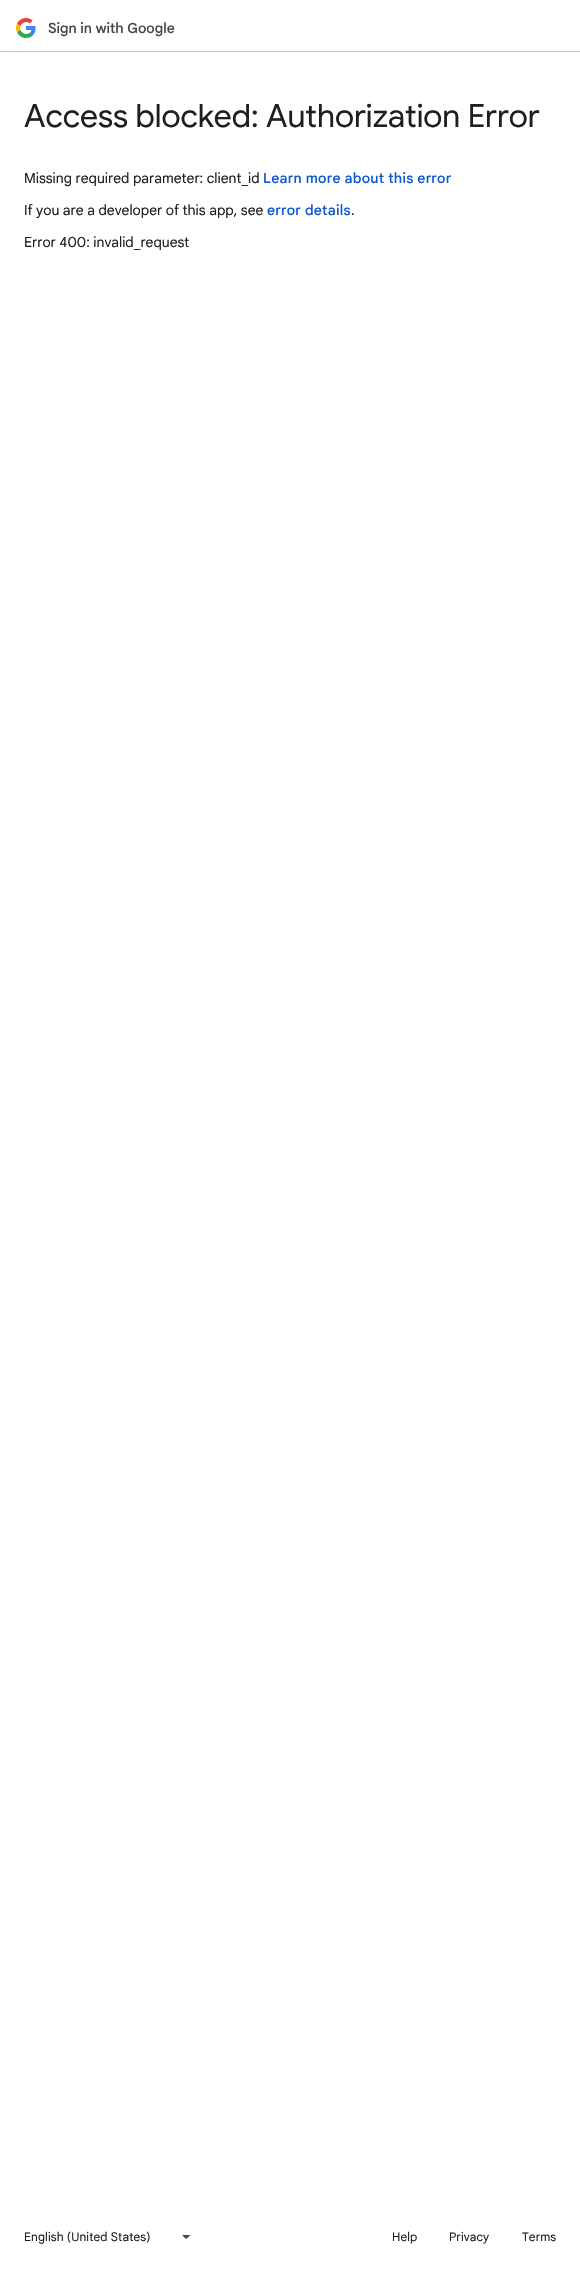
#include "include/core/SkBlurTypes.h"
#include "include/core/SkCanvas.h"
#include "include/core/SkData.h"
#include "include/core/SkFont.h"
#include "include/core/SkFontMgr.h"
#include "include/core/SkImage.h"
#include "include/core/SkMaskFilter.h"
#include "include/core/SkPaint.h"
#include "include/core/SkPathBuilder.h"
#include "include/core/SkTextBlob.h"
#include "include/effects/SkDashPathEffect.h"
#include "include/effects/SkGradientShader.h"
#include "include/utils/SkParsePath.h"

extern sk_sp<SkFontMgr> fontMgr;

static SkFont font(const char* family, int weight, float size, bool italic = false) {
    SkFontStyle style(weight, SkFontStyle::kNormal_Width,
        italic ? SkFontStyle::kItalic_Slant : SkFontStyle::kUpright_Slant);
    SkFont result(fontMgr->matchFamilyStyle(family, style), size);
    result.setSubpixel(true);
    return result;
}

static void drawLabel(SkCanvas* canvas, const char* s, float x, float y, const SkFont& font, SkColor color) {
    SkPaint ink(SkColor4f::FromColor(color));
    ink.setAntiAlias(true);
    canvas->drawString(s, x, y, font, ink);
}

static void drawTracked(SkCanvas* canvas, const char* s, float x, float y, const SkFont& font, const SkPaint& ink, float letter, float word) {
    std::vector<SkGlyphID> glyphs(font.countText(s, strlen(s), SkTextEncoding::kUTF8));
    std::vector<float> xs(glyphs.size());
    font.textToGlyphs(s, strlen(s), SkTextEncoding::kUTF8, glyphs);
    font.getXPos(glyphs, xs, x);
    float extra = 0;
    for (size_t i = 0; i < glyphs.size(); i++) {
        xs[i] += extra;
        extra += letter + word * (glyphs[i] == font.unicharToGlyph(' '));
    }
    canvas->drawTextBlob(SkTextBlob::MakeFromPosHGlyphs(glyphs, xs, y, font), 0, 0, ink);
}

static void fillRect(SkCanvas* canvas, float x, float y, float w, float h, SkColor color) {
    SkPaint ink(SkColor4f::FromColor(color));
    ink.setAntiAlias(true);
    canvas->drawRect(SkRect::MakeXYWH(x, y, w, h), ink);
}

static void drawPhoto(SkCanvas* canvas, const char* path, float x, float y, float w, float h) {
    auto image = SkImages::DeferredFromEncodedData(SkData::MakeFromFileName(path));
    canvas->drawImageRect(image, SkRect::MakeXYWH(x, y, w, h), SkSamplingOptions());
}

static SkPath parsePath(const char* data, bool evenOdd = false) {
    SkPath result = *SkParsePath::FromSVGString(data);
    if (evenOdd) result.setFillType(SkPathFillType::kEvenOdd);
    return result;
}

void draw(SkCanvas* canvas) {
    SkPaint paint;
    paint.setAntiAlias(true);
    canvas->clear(0xFFFFFFFF);
    fillRect(canvas, 0, 51, 580, 1, 0xFFC4C7C5);
    drawPhoto(canvas, "assets/img1.png", 16, 18, 20, 20);
    SkFont font1 = font("Google Sans", 500, 14);
    drawLabel(canvas, "Sign in with Google", 48, 33, font1, 0xFF444746);
    SkFont font2 = font("Google Sans", 400, 32);
    drawLabel(canvas, "Access blocked: Authorization Error", 24, 127, font2, 0xFF1F1F1F);
    SkFont font3 = font("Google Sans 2", 400, 14);
    drawLabel(canvas, "Missing required parameter: client_id", 24, 183, font3, 0xFF1F1F1F);
    paint.setColor(0xFF0B57D0);
    drawTracked(canvas, "Learn more about this error", 263, 183, font1, paint, 0.25f, 0);
    drawLabel(canvas, "If you are a developer of this app, see", 24, 215, font3, 0xFF1F1F1F);
    drawTracked(canvas, "error details", 267, 215, font1, paint, 0.25f, 0);
    drawLabel(canvas, ".", 351, 215, font3, 0xFF1F1F1F);
    drawLabel(canvas, "Error 400: invalid_request", 24, 247, font3, 0xFF1F1F1F);
    SkFont font4 = font("Google Sans 2", 400, 12);
    paint.setColor(0xFF1F1F1F);
    drawTracked(canvas, "English (United States)", 24, 2241, font4, paint, 0.1f, 0);
    paint.setColor(0xFF444746);
    canvas->drawPath(parsePath("M182 2235L186 2239L190.5 2235Z", true), paint);
    paint.setColor(0xFF1F1F1F);
    drawTracked(canvas, "Help", 392, 2241, font4, paint, 0.1f, 0);
    drawTracked(canvas, "Privacy", 449, 2241, font4, paint, 0.1f, 0);
    drawTracked(canvas, "Terms", 522, 2241, font4, paint, 0.1f, 0);
}
